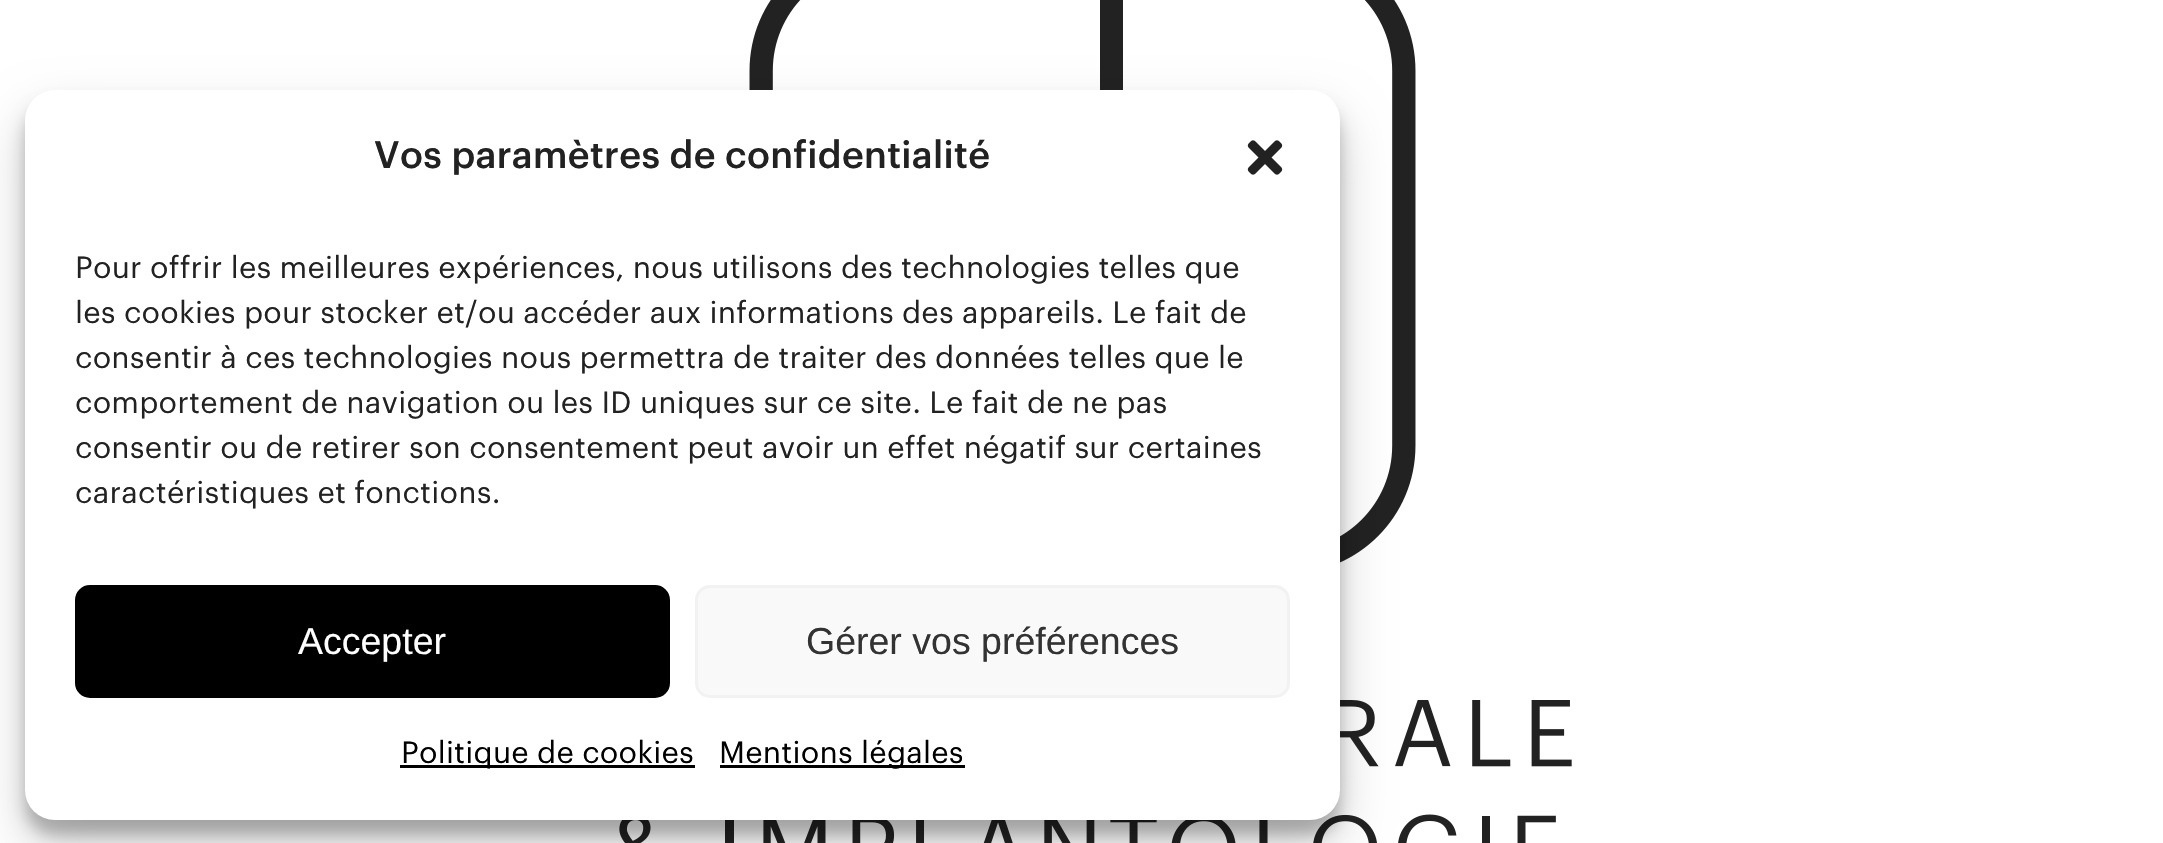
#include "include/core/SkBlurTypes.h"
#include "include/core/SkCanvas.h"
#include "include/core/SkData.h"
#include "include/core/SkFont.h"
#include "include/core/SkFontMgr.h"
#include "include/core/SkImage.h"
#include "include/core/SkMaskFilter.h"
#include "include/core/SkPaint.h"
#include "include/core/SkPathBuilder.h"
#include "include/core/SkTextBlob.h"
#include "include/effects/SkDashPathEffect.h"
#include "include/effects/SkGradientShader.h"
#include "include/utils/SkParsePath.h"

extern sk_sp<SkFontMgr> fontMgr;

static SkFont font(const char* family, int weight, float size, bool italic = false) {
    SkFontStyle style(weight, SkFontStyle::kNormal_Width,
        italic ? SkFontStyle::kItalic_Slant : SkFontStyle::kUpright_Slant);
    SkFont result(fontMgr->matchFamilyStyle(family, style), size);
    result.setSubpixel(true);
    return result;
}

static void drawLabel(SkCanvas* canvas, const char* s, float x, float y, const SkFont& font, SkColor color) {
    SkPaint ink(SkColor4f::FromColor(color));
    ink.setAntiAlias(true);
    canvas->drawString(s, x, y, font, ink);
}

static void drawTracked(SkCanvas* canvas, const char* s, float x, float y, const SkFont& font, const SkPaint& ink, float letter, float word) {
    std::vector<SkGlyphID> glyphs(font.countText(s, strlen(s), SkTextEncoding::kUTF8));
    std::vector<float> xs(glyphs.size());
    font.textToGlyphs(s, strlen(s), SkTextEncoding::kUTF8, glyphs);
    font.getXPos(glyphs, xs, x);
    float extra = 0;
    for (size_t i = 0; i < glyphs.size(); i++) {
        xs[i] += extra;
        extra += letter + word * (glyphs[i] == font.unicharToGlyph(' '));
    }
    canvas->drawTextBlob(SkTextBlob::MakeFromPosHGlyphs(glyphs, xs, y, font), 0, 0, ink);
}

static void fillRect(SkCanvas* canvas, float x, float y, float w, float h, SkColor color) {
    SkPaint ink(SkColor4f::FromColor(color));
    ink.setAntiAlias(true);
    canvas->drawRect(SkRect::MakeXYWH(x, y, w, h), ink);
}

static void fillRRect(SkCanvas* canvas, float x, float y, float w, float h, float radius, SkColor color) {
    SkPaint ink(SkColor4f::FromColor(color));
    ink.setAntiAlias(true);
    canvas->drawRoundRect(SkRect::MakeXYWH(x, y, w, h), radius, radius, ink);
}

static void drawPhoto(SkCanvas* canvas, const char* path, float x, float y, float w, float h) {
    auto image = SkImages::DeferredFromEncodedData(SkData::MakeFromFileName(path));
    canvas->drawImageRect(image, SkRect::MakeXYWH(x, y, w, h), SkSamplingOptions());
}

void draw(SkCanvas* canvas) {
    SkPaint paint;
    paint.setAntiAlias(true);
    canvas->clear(0xFFFFFFFF);
    drawPhoto(canvas, "assets/img1.png", 619, 0, 953, 843);
    paint.setColor(0x3B000000);
    paint.setMaskFilter(SkMaskFilter::MakeBlur(kNormal_SkBlurStyle, 7.5f));
    canvas->drawRoundRect(SkRect::MakeXYWH(25, 105, 1315, 730), 30, 30, paint);
    paint.setMaskFilter(nullptr);
    paint.setColor(0x30000000);
    paint.setMaskFilter(SkMaskFilter::MakeBlur(kNormal_SkBlurStyle, 25));
    canvas->drawRoundRect(SkRect::MakeXYWH(25, 115, 1315, 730), 30, 30, paint);
    paint.setMaskFilter(nullptr);
    fillRRect(canvas, 25, 90, 1315, 730, 30, 0xFFFFFFFF);
    SkFont font1 = font("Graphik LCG", 500, 37.5f);
    paint.setColor(0xFF222222);
    drawTracked(canvas, "Vos paramètres de confidentialité", 374, 168, font1, paint, 0.2f, 0);
    drawPhoto(canvas, "assets/img2.png", 1247, 140, 36, 35);
    SkFont font2 = font("Graphik LCG", 400, 30);
    drawTracked(canvas, "Pour offrir les meilleures expériences, nous utilisons des technologies telles que", 75, 278, font2, paint, 0.2f, 0);
    drawTracked(canvas, "les cookies pour stocker et/ou accéder aux informations des appareils. Le fait de", 75, 323, font2, paint, 0.2f, 0);
    drawTracked(canvas, "consentir à ces technologies nous permettra de traiter des données telles que le", 75, 368, font2, paint, 0.2f, 0);
    drawTracked(canvas, "comportement de navigation ou les ID uniques sur ce site. Le fait de ne pas", 75, 413, font2, paint, 0.2f, 0);
    drawTracked(canvas, "consentir ou de retirer son consentement peut avoir un effet négatif sur certaines", 75, 458, font2, paint, 0.2f, 0);
    drawTracked(canvas, "caractéristiques et fonctions.", 75, 503, font2, paint, 0.2f, 0);
    paint.setColor(0xFF000000);
    canvas->drawRoundRect(SkRect::MakeXYWH(76.5f, 586.5f, 592, 110), 13.5f, 13.5f, paint);
    paint.setStroke(true);
    paint.setStrokeWidth(3);
    canvas->drawRoundRect(SkRect::MakeXYWH(76.5f, 586.5f, 592, 110), 13.5f, 13.5f, paint);
    SkFont font3 = font("Liberation Sans", 400, 37.5f);
    drawLabel(canvas, "Accepter", 298, 654, font3, 0xFFFFFFFF);
    paint.setStroke(false);
    paint.setColor(0xFFF9F9F9);
    canvas->drawRoundRect(SkRect::MakeXYWH(696.5f, 586.5f, 592, 110), 13.5f, 13.5f, paint);
    paint.setStroke(true);
    paint.setColor(0xFFF2F2F2);
    canvas->drawRoundRect(SkRect::MakeXYWH(696.5f, 586.5f, 592, 110), 13.5f, 13.5f, paint);
    drawLabel(canvas, "Gérer vos préférences", 806, 654, font3, 0xFF333333);
    fillRect(canvas, 400, 765, 295, 3, 0xFF000000);
    paint.setStroke(false);
    paint.setColor(0xFF000000);
    drawTracked(canvas, "Politique de cookies", 401, 763, font2, paint, 0.2f, 0);
    fillRect(canvas, 720, 765, 245, 3, 0xFF000000);
    drawTracked(canvas, "Mentions légales", 719, 763, font2, paint, 0.2f, 0);
}
